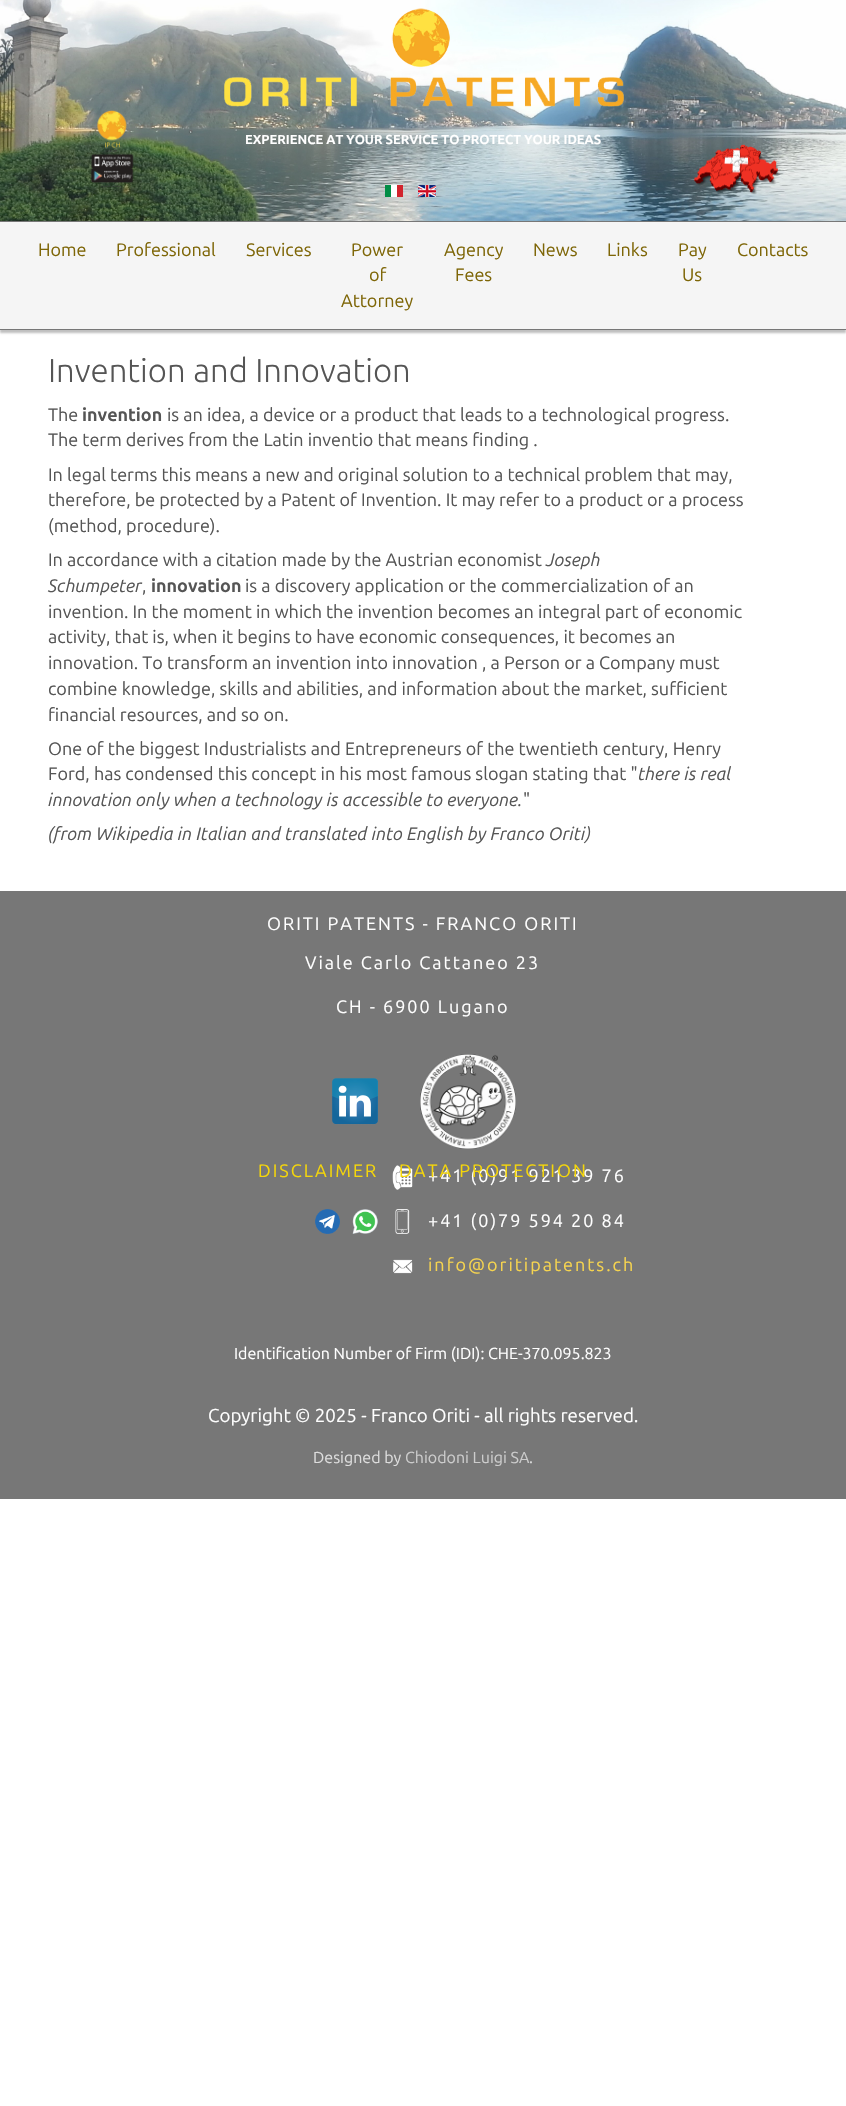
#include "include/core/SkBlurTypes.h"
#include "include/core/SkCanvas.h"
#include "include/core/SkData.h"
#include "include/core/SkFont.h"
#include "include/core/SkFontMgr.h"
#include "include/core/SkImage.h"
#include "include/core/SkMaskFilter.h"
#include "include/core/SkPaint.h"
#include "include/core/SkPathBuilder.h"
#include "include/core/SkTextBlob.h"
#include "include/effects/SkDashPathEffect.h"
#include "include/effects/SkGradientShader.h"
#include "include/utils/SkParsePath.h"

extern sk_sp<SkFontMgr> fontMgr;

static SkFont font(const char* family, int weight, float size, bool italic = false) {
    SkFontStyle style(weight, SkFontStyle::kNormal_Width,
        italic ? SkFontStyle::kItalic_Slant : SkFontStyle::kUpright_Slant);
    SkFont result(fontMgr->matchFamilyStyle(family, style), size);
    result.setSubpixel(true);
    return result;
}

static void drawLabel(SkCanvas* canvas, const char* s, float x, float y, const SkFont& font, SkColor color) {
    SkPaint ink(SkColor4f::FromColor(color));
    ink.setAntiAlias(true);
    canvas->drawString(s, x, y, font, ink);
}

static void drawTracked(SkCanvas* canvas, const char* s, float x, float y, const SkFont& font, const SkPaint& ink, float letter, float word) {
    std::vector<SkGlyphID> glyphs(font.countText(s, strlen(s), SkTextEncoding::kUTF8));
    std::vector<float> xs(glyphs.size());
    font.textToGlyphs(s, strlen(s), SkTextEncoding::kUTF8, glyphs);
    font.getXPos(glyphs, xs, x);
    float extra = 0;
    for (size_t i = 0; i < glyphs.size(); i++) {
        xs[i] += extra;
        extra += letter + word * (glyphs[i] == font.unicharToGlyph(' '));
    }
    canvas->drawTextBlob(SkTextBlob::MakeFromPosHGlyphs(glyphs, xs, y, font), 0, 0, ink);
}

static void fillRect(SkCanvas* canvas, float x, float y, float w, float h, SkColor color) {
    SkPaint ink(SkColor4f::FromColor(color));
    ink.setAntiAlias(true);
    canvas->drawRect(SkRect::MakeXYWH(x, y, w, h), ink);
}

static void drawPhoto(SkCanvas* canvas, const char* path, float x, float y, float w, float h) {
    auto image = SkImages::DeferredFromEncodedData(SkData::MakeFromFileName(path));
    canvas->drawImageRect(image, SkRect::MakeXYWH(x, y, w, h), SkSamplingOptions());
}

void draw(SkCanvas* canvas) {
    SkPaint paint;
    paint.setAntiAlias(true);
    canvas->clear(0xFFFFFFFF);
    drawPhoto(canvas, "assets/img1.png", 0, 0, 846, 221);
    drawPhoto(canvas, "assets/img2.png", 224, 8, 400, 99);
    drawPhoto(canvas, "assets/img3.png", 90, 110, 44, 78);
    SkFont font1 = font("Ubuntu", 700, 13);
    drawLabel(canvas, "EXPERIENCE AT YOUR SERVICE TO PROTECT YOUR IDEAS", 245, 144, font1, 0xFFFFFFFF);
    drawPhoto(canvas, "assets/img4.png", 385, 185, 18, 12);
    drawPhoto(canvas, "assets/img5.png", 418, 185, 18, 12);
    drawPhoto(canvas, "assets/img6.png", 694, 144, 86, 51);
    paint.setColor(0x40000000);
    paint.setMaskFilter(SkMaskFilter::MakeBlur(kNormal_SkBlurStyle, 1));
    canvas->drawRect(SkRect::MakeXYWH(0, 224, 846, 109), paint);
    paint.setMaskFilter(nullptr);
    fillRect(canvas, 0, 222, 846, 107, 0xFFF5F5F5);
    fillRect(canvas, 0, 221, 846, 1, 0xFF777777);
    fillRect(canvas, 0, 329, 846, 1, 0xFF777777);
    SkFont font2 = font("Ubuntu", 400, 18);
    drawLabel(canvas, "Home", 38, 256, font2, 0xFF7E6607);
    drawLabel(canvas, "Professional", 116, 256, font2, 0xFF7E6607);
    drawLabel(canvas, "Services", 246, 256, font2, 0xFF7E6607);
    drawLabel(canvas, "Power", 351, 256, font2, 0xFF7E6607);
    drawLabel(canvas, "of", 369, 281, font2, 0xFF7E6607);
    drawLabel(canvas, "Attorney", 341, 307, font2, 0xFF7E6607);
    drawLabel(canvas, "Agency", 444, 256, font2, 0xFF7E6607);
    drawLabel(canvas, "Fees", 455, 281, font2, 0xFF7E6607);
    drawLabel(canvas, "News", 533, 256, font2, 0xFF7E6607);
    drawLabel(canvas, "Links", 607, 256, font2, 0xFF7E6607);
    drawLabel(canvas, "Pay", 678, 256, font2, 0xFF7E6607);
    drawLabel(canvas, "Us", 682, 281, font2, 0xFF7E6607);
    drawLabel(canvas, "Contacts", 737, 256, font2, 0xFF7E6607);
    SkFont font3 = font("Ubuntu", 300, 33);
    drawLabel(canvas, "Invention and Innovation", 48, 382, font3, 0xFF555555);
    drawLabel(canvas, "The", 48, 421, font2, 0xFF555555);
    SkFont font4 = font("Ubuntu", 700, 18);
    drawLabel(canvas, "invention", 82, 421, font4, 0xFF555555);
    drawLabel(canvas, "is an idea, a device or a product that leads to a technological progress.", 167, 421, font2, 0xFF555555);
    drawLabel(canvas, "The term derives from the Latin inventio that means finding .", 48, 446, font2, 0xFF555555);
    drawLabel(canvas, "In legal terms this means a new and original solution to a technical problem that may,", 48, 481, font2, 0xFF555555);
    drawLabel(canvas, "therefore, be protected by a Patent of Invention. It may refer to a product or a process", 48, 506, font2, 0xFF555555);
    drawLabel(canvas, "(method, procedure).", 48, 532, font2, 0xFF555555);
    drawLabel(canvas, "In accordance with a citation made by the Austrian economist", 48, 566, font2, 0xFF555555);
    SkFont font5 = font("Ubuntu", 400, 18, true);
    drawLabel(canvas, "Joseph", 546, 566, font5, 0xFF555555);
    drawLabel(canvas, "Schumpeter", 48, 592, font5, 0xFF555555);
    drawLabel(canvas, ",", 142, 592, font2, 0xFF555555);
    drawLabel(canvas, "innovation", 151, 592, font4, 0xFF555555);
    drawLabel(canvas, "is a discovery application or the commercialization of an", 245, 592, font2, 0xFF555555);
    drawLabel(canvas, "invention. In the moment in which the invention becomes an integral part of economic", 48, 618, font2, 0xFF555555);
    drawLabel(canvas, "activity, that is, when it begins to have economic consequences, it becomes an", 48, 643, font2, 0xFF555555);
    drawLabel(canvas, "innovation. To transform an invention into innovation , a Person or a Company must", 48, 669, font2, 0xFF555555);
    drawLabel(canvas, "combine knowledge, skills and abilities, and information about the market, sufficient", 48, 695, font2, 0xFF555555);
    drawLabel(canvas, "financial resources, and so on.", 48, 721, font2, 0xFF555555);
    drawLabel(canvas, "One of the biggest Industrialists and Entrepreneurs of the twentieth century, Henry", 48, 755, font2, 0xFF555555);
    drawLabel(canvas, "Ford, has condensed this concept in his most famous slogan stating that \"", 48, 780, font2, 0xFF555555);
    drawLabel(canvas, "there is real", 638, 780, font5, 0xFF555555);
    drawLabel(canvas, "innovation only when a technology is accessible to everyone.", 48, 806, font5, 0xFF555555);
    drawLabel(canvas, "\"", 523, 806, font2, 0xFF555555);
    drawLabel(canvas, "(from Wikipedia in Italian and translated into English by Franco Oriti)", 48, 840, font5, 0xFF555555);
    fillRect(canvas, 0, 891, 846, 608, 0xFF777777);
    paint.setColor(0xFFFFFFFF);
    drawTracked(canvas, "ORITI PATENTS - FRANCO ORITI", 267, 930, font2, paint, 2, 0);
    drawTracked(canvas, "Viale Carlo Cattaneo 23", 305, 969, font2, paint, 2, 0);
    drawTracked(canvas, "CH - 6900 Lugano", 336, 1013, font2, paint, 2, 0);
    drawPhoto(canvas, "assets/img7.png", 332, 1078, 46, 47);
    drawPhoto(canvas, "assets/img8.png", 420, 1054, 96, 95);
    paint.setColor(0xFFF5D60A);
    drawTracked(canvas, "DISCLAIMER", 258, 1177, font2, paint, 2, 0);
    drawPhoto(canvas, "assets/img9.png", 392, 1165, 21, 25);
    paint.setColor(0xFFFFFFFF);
    drawTracked(canvas, "+41 (0)91 921 39 76", 428, 1182, font2, paint, 2, 0);
    paint.setColor(0xFFF5D60A);
    drawTracked(canvas, "DATA PROTECTION", 399, 1177, font2, paint, 2, 0);
    drawPhoto(canvas, "assets/img10.png", 315, 1209, 25, 25);
    drawPhoto(canvas, "assets/img11.png", 352, 1209, 26, 25);
    drawPhoto(canvas, "assets/img12.png", 395, 1209, 15, 25);
    paint.setColor(0xFFFFFFFF);
    drawTracked(canvas, "+41 (0)79 594 20 84", 428, 1227, font2, paint, 2, 0);
    drawPhoto(canvas, "assets/img13.png", 393, 1259, 20, 15);
    paint.setColor(0xFFF6D44F);
    drawTracked(canvas, "info@oritipatents.ch", 428, 1271, font2, paint, 2, 0);
    SkFont font6 = font("Ubuntu", 400, 16);
    drawLabel(canvas, "Identification Number of Firm (IDI): CHE-370.095.823", 234, 1359, font6, 0xFFFFFFFF);
    SkFont font7 = font("Ubuntu", 400, 18.7f);
    drawLabel(canvas, "Copyright © 2025 - Franco Oriti - all rights reserved.", 208, 1422, font7, 0xFFFFFFFF);
    drawLabel(canvas, "Designed by", 313, 1463, font6, 0xFFDDDDDD);
    drawLabel(canvas, "Chiodoni Luigi SA", 405, 1463, font6, 0xFFCCCCCC);
    drawLabel(canvas, ".", 529, 1463, font6, 0xFFDDDDDD);
}
